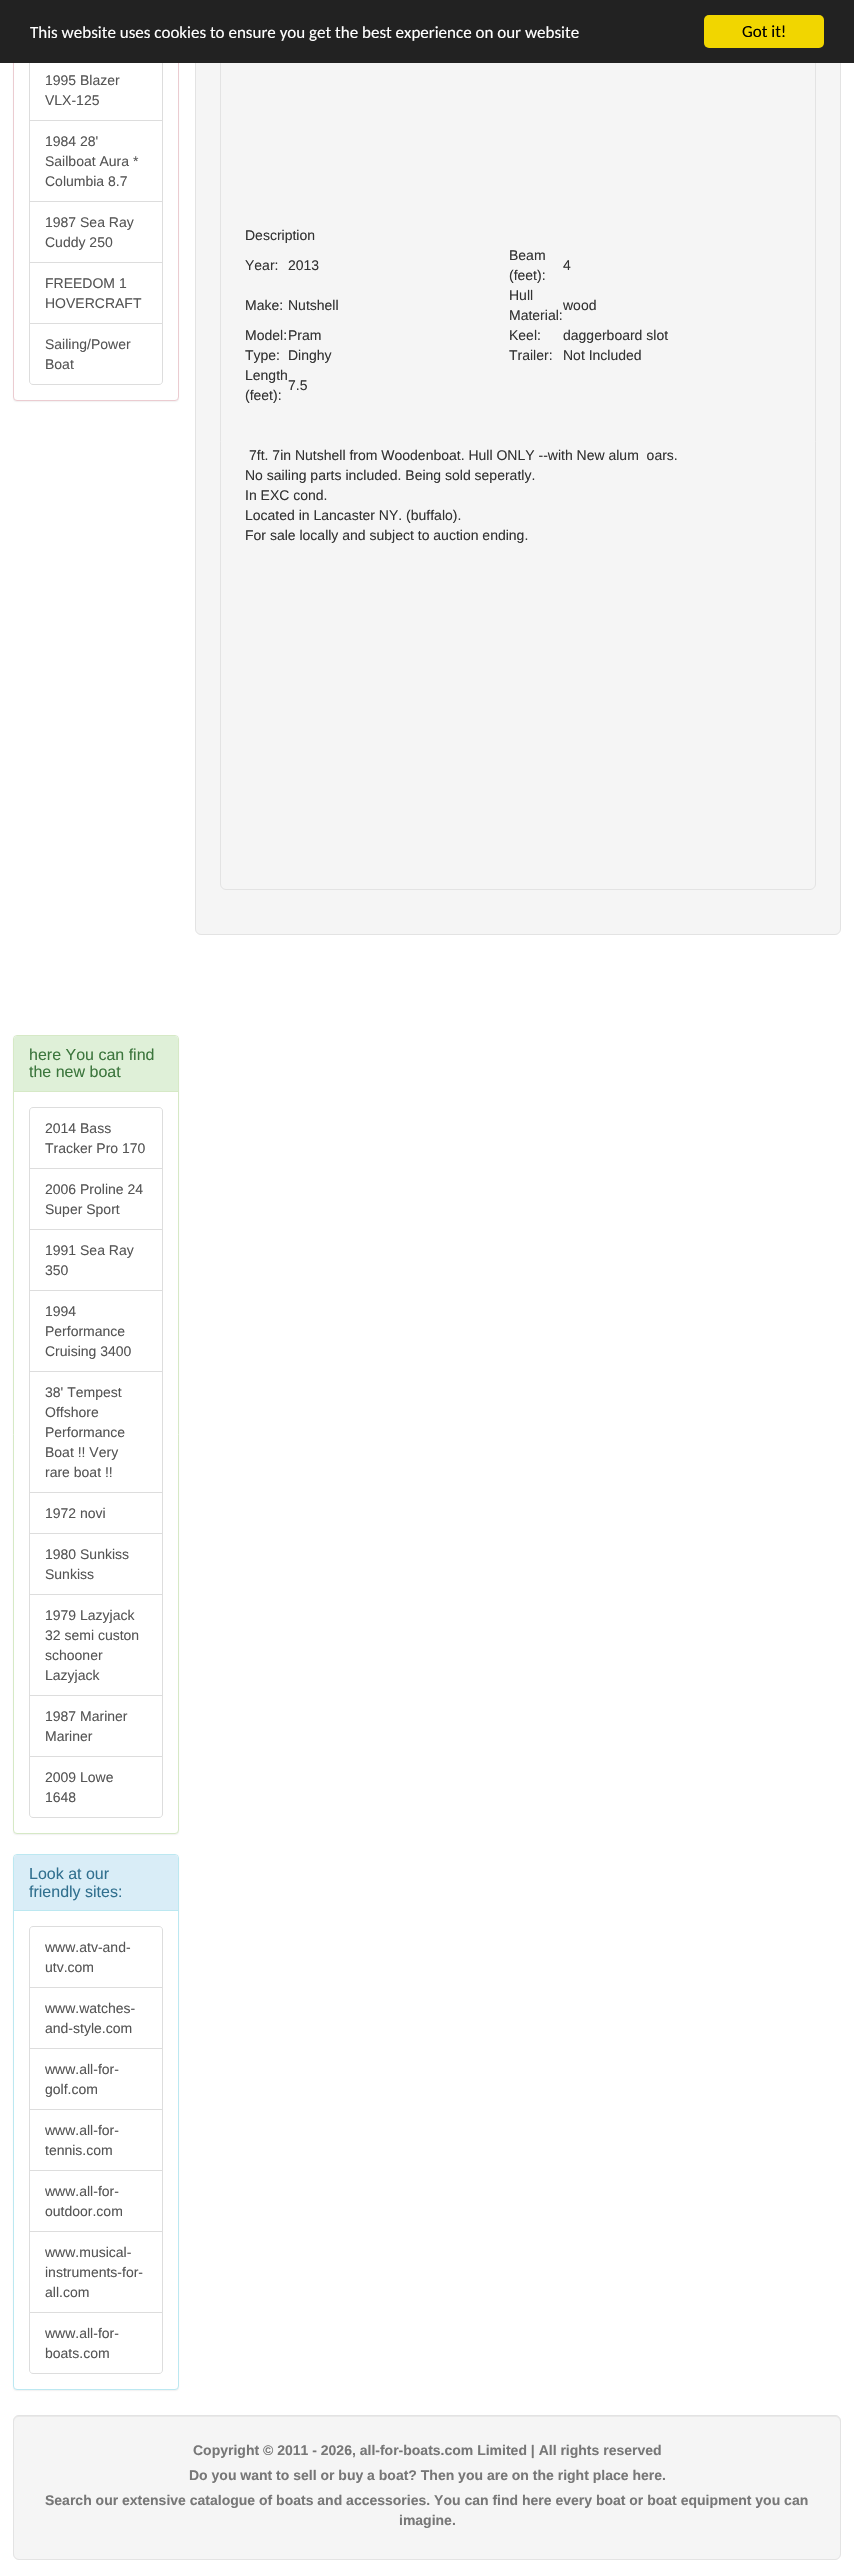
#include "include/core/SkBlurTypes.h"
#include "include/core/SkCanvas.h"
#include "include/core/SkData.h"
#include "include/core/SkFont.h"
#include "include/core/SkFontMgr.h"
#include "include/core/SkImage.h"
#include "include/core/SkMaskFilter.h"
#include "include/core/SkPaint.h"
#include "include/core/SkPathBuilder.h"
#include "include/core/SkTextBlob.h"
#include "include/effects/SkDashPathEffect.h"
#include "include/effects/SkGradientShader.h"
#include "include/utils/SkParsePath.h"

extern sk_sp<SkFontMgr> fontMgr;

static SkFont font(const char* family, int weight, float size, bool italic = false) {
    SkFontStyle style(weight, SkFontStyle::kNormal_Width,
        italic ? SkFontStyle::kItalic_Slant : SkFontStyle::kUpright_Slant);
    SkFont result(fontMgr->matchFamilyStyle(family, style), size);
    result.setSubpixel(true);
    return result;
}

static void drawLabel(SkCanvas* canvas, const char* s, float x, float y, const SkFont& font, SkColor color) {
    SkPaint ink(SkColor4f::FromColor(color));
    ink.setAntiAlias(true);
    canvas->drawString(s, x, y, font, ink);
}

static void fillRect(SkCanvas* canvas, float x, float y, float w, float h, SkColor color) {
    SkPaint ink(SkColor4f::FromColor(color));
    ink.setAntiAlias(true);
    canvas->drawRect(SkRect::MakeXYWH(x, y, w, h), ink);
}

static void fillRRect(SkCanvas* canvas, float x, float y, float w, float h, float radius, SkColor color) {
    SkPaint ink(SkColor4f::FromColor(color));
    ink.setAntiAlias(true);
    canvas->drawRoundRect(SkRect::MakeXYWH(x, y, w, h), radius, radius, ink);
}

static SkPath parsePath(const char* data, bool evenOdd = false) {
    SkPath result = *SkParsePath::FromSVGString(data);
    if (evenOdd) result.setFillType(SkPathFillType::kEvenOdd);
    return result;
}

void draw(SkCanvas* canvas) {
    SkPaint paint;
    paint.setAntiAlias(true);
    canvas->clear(0xFFFFFFFF);
    paint.setColor(0x0D000000);
    paint.setMaskFilter(SkMaskFilter::MakeBlur(kNormal_SkBlurStyle, 0.5f));
    canvas->drawRoundRect(SkRect::MakeXYWH(13, -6, 166, 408), 4, 4, paint);
    paint.setMaskFilter(nullptr);
    paint.setColor(0xFFFFFFFF);
    canvas->drawRoundRect(SkRect::MakeXYWH(13.5f, -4.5f, 165, 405), 3.5f, 3.5f, paint);
    paint.setStroke(true);
    paint.setStrokeWidth(1);
    paint.setColor(0xFFEBCCD1);
    canvas->drawRoundRect(SkRect::MakeXYWH(13.5f, -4.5f, 165, 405), 3.5f, 3.5f, paint);
    paint.setColor(0xFFDDDDDD);
    canvas->drawRect(SkRect::MakeXYWH(29.5f, 59.5f, 133, 61), paint);
    paint.setStroke(false);
    paint.setColor(0xFFF5F5F5);
    canvas->drawRoundRect(SkRect::MakeXYWH(195.5f, -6.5f, 645, 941), 5.5f, 5.5f, paint);
    paint.setStroke(true);
    paint.setColor(0xFFE3E3E3);
    canvas->drawRoundRect(SkRect::MakeXYWH(195.5f, -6.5f, 645, 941), 5.5f, 5.5f, paint);
    canvas->drawRoundRect(SkRect::MakeXYWH(220.5f, -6.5f, 595, 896), 5.5f, 5.5f, paint);
    fillRect(canvas, 0, 0, 854, 63, 0xFF222222);
    SkFont font1 = font("Carlito", 400, 17);
    drawLabel(canvas, "This website uses cookies to ensure you get the best experience on our website", 30, 38, font1, 0xFFFFFFFF);
    fillRRect(canvas, 704, 15, 120, 33, 5, 0xFFF1D600);
    drawLabel(canvas, "Got it!", 742, 37, font1, 0xFF000000);
    SkFont font2 = font("Liberation Sans", 400, 14);
    drawLabel(canvas, "1995 Blazer", 45, 85, font2, 0xFF555555);
    drawLabel(canvas, "VLX-125", 45, 105, font2, 0xFF555555);
    paint.setColor(0xFFDDDDDD);
    canvas->drawRect(SkRect::MakeXYWH(29.5f, 120.5f, 133, 81), paint);
    drawLabel(canvas, "1984 28'", 45, 146, font2, 0xFF555555);
    drawLabel(canvas, "Sailboat Aura *", 45, 166, font2, 0xFF555555);
    drawLabel(canvas, "Columbia 8.7", 45, 186, font2, 0xFF555555);
    canvas->drawRect(SkRect::MakeXYWH(29.5f, 201.5f, 133, 61), paint);
    drawLabel(canvas, "1987 Sea Ray", 45, 227, font2, 0xFF555555);
    drawLabel(canvas, "Cuddy 250", 45, 247, font2, 0xFF555555);
    canvas->drawRect(SkRect::MakeXYWH(29.5f, 262.5f, 133, 61), paint);
    drawLabel(canvas, "FREEDOM 1", 45, 288, font2, 0xFF555555);
    drawLabel(canvas, "HOVERCRAFT", 45, 308, font2, 0xFF555555);
    paint.setStroke(false);
    paint.setColor(0xFFFFFFFF);
    canvas->drawPath(parsePath("M29.5 323.5H162.5V381C162.5 383 161 384.5 159 384.5H33C31 384.5 29.5 383 29.5 381Z"), paint);
    paint.setStroke(true);
    paint.setColor(0xFFDDDDDD);
    canvas->drawPath(parsePath("M29.5 323.5H162.5V381C162.5 383 161 384.5 159 384.5H33C31 384.5 29.5 383 29.5 381Z"), paint);
    drawLabel(canvas, "Sailing/Power", 45, 349, font2, 0xFF555555);
    drawLabel(canvas, "Boat", 45, 369, font2, 0xFF555555);
    paint.setStroke(false);
    paint.setColor(0x0D000000);
    paint.setMaskFilter(SkMaskFilter::MakeBlur(kNormal_SkBlurStyle, 0.5f));
    canvas->drawRoundRect(SkRect::MakeXYWH(13, 1036, 166, 799), 4, 4, paint);
    paint.setMaskFilter(nullptr);
    paint.setColor(0xFFFFFFFF);
    canvas->drawRoundRect(SkRect::MakeXYWH(13.5f, 1035.5f, 165, 798), 3.5f, 3.5f, paint);
    paint.setStroke(true);
    paint.setColor(0xFFD6E9C6);
    canvas->drawRoundRect(SkRect::MakeXYWH(13.5f, 1035.5f, 165, 798), 3.5f, 3.5f, paint);
    paint.setStroke(false);
    paint.setColor(0xFFDFF0D8);
    canvas->drawPath(parsePath("M17 1036H175C176.5 1036 178 1037.5 178 1039V1092H14V1039C14 1037.5 15.5 1036 17 1036Z"), paint);
    fillRect(canvas, 14, 1091, 164, 1, 0xFFD6E9C6);
    SkFont font3 = font("Liberation Sans", 400, 16);
    drawLabel(canvas, "here You can find", 29, 1060, font3, 0xFF3C763D);
    drawLabel(canvas, "the new boat", 29, 1077, font3, 0xFF3C763D);
    paint.setStroke(true);
    paint.setColor(0xFFDDDDDD);
    canvas->drawPath(parsePath("M33 1107.5H159C161 1107.5 162.5 1109 162.5 1111V1168.5H29.5V1111C29.5 1109 31 1107.5 33 1107.5Z"), paint);
    drawLabel(canvas, "2014 Bass", 45, 1133, font2, 0xFF555555);
    drawLabel(canvas, "Tracker Pro 170", 45, 1153, font2, 0xFF555555);
    canvas->drawRect(SkRect::MakeXYWH(29.5f, 1168.5f, 133, 61), paint);
    drawLabel(canvas, "2006 Proline 24", 45, 1194, font2, 0xFF555555);
    drawLabel(canvas, "Super Sport", 45, 1214, font2, 0xFF555555);
    canvas->drawRect(SkRect::MakeXYWH(29.5f, 1229.5f, 133, 61), paint);
    drawLabel(canvas, "1991 Sea Ray", 45, 1255, font2, 0xFF555555);
    drawLabel(canvas, "350", 45, 1275, font2, 0xFF555555);
    canvas->drawRect(SkRect::MakeXYWH(29.5f, 1290.5f, 133, 81), paint);
    drawLabel(canvas, "1994", 45, 1316, font2, 0xFF555555);
    drawLabel(canvas, "Performance", 45, 1336, font2, 0xFF555555);
    drawLabel(canvas, "Cruising 3400", 45, 1356, font2, 0xFF555555);
    canvas->drawRect(SkRect::MakeXYWH(29.5f, 1371.5f, 133, 121), paint);
    drawLabel(canvas, "38' Tempest", 45, 1397, font2, 0xFF555555);
    drawLabel(canvas, "Offshore", 45, 1417, font2, 0xFF555555);
    drawLabel(canvas, "Performance", 45, 1437, font2, 0xFF555555);
    drawLabel(canvas, "Boat !! Very", 45, 1457, font2, 0xFF555555);
    drawLabel(canvas, "rare boat !!", 45, 1477, font2, 0xFF555555);
    canvas->drawRect(SkRect::MakeXYWH(29.5f, 1492.5f, 133, 41), paint);
    drawLabel(canvas, "1972 novi", 45, 1518, font2, 0xFF555555);
    canvas->drawRect(SkRect::MakeXYWH(29.5f, 1533.5f, 133, 61), paint);
    drawLabel(canvas, "1980 Sunkiss", 45, 1559, font2, 0xFF555555);
    drawLabel(canvas, "Sunkiss", 45, 1579, font2, 0xFF555555);
    canvas->drawRect(SkRect::MakeXYWH(29.5f, 1594.5f, 133, 101), paint);
    drawLabel(canvas, "1979 Lazyjack", 45, 1620, font2, 0xFF555555);
    drawLabel(canvas, "32 semi custon", 45, 1640, font2, 0xFF555555);
    drawLabel(canvas, "schooner", 45, 1660, font2, 0xFF555555);
    drawLabel(canvas, "Lazyjack", 45, 1680, font2, 0xFF555555);
    canvas->drawRect(SkRect::MakeXYWH(29.5f, 1695.5f, 133, 61), paint);
    drawLabel(canvas, "1987 Mariner", 45, 1721, font2, 0xFF555555);
    drawLabel(canvas, "Mariner", 45, 1741, font2, 0xFF555555);
    paint.setStroke(false);
    paint.setColor(0xFFFFFFFF);
    canvas->drawPath(parsePath("M29.5 1756.5H162.5V1814C162.5 1816 161 1817.5 159 1817.5H33C31 1817.5 29.5 1816 29.5 1814Z"), paint);
    paint.setStroke(true);
    paint.setColor(0xFFDDDDDD);
    canvas->drawPath(parsePath("M29.5 1756.5H162.5V1814C162.5 1816 161 1817.5 159 1817.5H33C31 1817.5 29.5 1816 29.5 1814Z"), paint);
    drawLabel(canvas, "2009 Lowe", 45, 1782, font2, 0xFF555555);
    drawLabel(canvas, "1648", 45, 1802, font2, 0xFF555555);
    paint.setStroke(false);
    paint.setColor(0x0D000000);
    paint.setMaskFilter(SkMaskFilter::MakeBlur(kNormal_SkBlurStyle, 0.5f));
    canvas->drawRoundRect(SkRect::MakeXYWH(13, 1855, 166, 536), 4, 4, paint);
    paint.setMaskFilter(nullptr);
    paint.setColor(0xFFFFFFFF);
    canvas->drawRoundRect(SkRect::MakeXYWH(13.5f, 1854.5f, 165, 535), 3.5f, 3.5f, paint);
    paint.setStroke(true);
    paint.setColor(0xFFBCE8F1);
    canvas->drawRoundRect(SkRect::MakeXYWH(13.5f, 1854.5f, 165, 535), 3.5f, 3.5f, paint);
    paint.setStroke(false);
    paint.setColor(0xFFD9EDF7);
    canvas->drawPath(parsePath("M17 1855H175C176.5 1855 178 1856.5 178 1858V1911H14V1858C14 1856.5 15.5 1855 17 1855Z"), paint);
    fillRect(canvas, 14, 1910, 164, 1, 0xFFBCE8F1);
    drawLabel(canvas, "Look at our", 29, 1879, font3, 0xFF31708F);
    drawLabel(canvas, "friendly sites:", 29, 1897, font3, 0xFF31708F);
    paint.setStroke(true);
    paint.setColor(0xFFDDDDDD);
    canvas->drawPath(parsePath("M33 1926.5H159C161 1926.5 162.5 1928 162.5 1930V1987.5H29.5V1930C29.5 1928 31 1926.5 33 1926.5Z"), paint);
    drawLabel(canvas, "www.atv-and-", 45, 1952, font2, 0xFF555555);
    drawLabel(canvas, "utv.com", 45, 1972, font2, 0xFF555555);
    canvas->drawRect(SkRect::MakeXYWH(29.5f, 1987.5f, 133, 61), paint);
    drawLabel(canvas, "www.watches-", 45, 2013, font2, 0xFF555555);
    drawLabel(canvas, "and-style.com", 45, 2033, font2, 0xFF555555);
    canvas->drawRect(SkRect::MakeXYWH(29.5f, 2048.5f, 133, 61), paint);
    drawLabel(canvas, "www.all-for-", 45, 2074, font2, 0xFF555555);
    drawLabel(canvas, "golf.com", 45, 2094, font2, 0xFF555555);
    canvas->drawRect(SkRect::MakeXYWH(29.5f, 2109.5f, 133, 61), paint);
    drawLabel(canvas, "www.all-for-", 45, 2135, font2, 0xFF555555);
    drawLabel(canvas, "tennis.com", 45, 2155, font2, 0xFF555555);
    canvas->drawRect(SkRect::MakeXYWH(29.5f, 2170.5f, 133, 61), paint);
    drawLabel(canvas, "www.all-for-", 45, 2196, font2, 0xFF555555);
    drawLabel(canvas, "outdoor.com", 45, 2216, font2, 0xFF555555);
    canvas->drawRect(SkRect::MakeXYWH(29.5f, 2231.5f, 133, 81), paint);
    drawLabel(canvas, "www.musical-", 45, 2257, font2, 0xFF555555);
    drawLabel(canvas, "instruments-for-", 45, 2277, font2, 0xFF555555);
    drawLabel(canvas, "all.com", 45, 2297, font2, 0xFF555555);
    paint.setStroke(false);
    paint.setColor(0xFFFFFFFF);
    canvas->drawPath(parsePath("M29.5 2312.5H162.5V2370C162.5 2372 161 2373.5 159 2373.5H33C31 2373.5 29.5 2372 29.5 2370Z"), paint);
    paint.setStroke(true);
    paint.setColor(0xFFDDDDDD);
    canvas->drawPath(parsePath("M29.5 2312.5H162.5V2370C162.5 2372 161 2373.5 159 2373.5H33C31 2373.5 29.5 2372 29.5 2370Z"), paint);
    drawLabel(canvas, "www.all-for-", 45, 2338, font2, 0xFF555555);
    drawLabel(canvas, "boats.com", 45, 2358, font2, 0xFF555555);
    drawLabel(canvas, "Description", 245, 240, font2, 0xFF333333);
    drawLabel(canvas, "Year:", 245, 270, font2, 0xFF333333);
    drawLabel(canvas, "2013", 288, 270, font2, 0xFF333333);
    drawLabel(canvas, "Beam", 509, 260, font2, 0xFF333333);
    drawLabel(canvas, "(feet):", 509, 280, font2, 0xFF333333);
    drawLabel(canvas, "4", 563, 270, font2, 0xFF333333);
    drawLabel(canvas, "Make:", 245, 310, font2, 0xFF333333);
    drawLabel(canvas, "Nutshell", 288, 310, font2, 0xFF333333);
    drawLabel(canvas, "Hull", 509, 300, font2, 0xFF333333);
    drawLabel(canvas, "Material:", 509, 320, font2, 0xFF333333);
    drawLabel(canvas, "wood", 563, 310, font2, 0xFF333333);
    drawLabel(canvas, "Model:", 245, 340, font2, 0xFF333333);
    drawLabel(canvas, "Pram", 288, 340, font2, 0xFF333333);
    drawLabel(canvas, "Keel:", 509, 340, font2, 0xFF333333);
    drawLabel(canvas, "daggerboard slot", 563, 340, font2, 0xFF333333);
    drawLabel(canvas, "Type:", 245, 360, font2, 0xFF333333);
    drawLabel(canvas, "Dinghy", 288, 360, font2, 0xFF333333);
    drawLabel(canvas, "Trailer:", 509, 360, font2, 0xFF333333);
    drawLabel(canvas, "Not Included", 563, 360, font2, 0xFF333333);
    drawLabel(canvas, "Length", 245, 380, font2, 0xFF333333);
    drawLabel(canvas, "(feet):", 245, 400, font2, 0xFF333333);
    drawLabel(canvas, "7.5", 288, 390, font2, 0xFF333333);
    drawLabel(canvas, "7ft. 7in Nutshell from Woodenboat. Hull ONLY --with New alum  oars.", 249, 460, font2, 0xFF333333);
    drawLabel(canvas, "No sailing parts included. Being sold seperatly.", 245, 480, font2, 0xFF333333);
    drawLabel(canvas, "In EXC cond.", 245, 500, font2, 0xFF333333);
    drawLabel(canvas, "Located in Lancaster NY. (buffalo).", 245, 520, font2, 0xFF333333);
    drawLabel(canvas, "For sale locally and subject to auction ending.", 245, 540, font2, 0xFF333333);
    fillRRect(canvas, 13, 2415, 828, 145, 6, 0xFFF5F5F5);
    paint.setStroke(false);
    paint.setColor(0xFFE9E9E9);
    canvas->drawPath(parsePath("M19 2417H835C838 2417 840 2419 840 2422V2421C840 2418 838 2416 835 2416H19C16 2416 14 2418 14 2421V2422C14 2419 16 2417 19 2417Z"), paint);
    paint.setStroke(true);
    paint.setColor(0xFFE3E3E3);
    canvas->drawRoundRect(SkRect::MakeXYWH(13.5f, 2415.5f, 827, 144), 5.5f, 5.5f, paint);
    SkFont font4 = font("Liberation Sans", 700, 14);
    drawLabel(canvas, "Copyright © 2011 - 2026, all-for-boats.com Limited | All rights reserved", 193, 2455, font4, 0xFF777777);
    drawLabel(canvas, "Do you want to sell or buy a boat? Then you are on the right place here.", 189, 2480, font4, 0xFF777777);
    drawLabel(canvas, "Search our extensive catalogue of boats and accessories. You can find here every boat or boat equipment you can", 45, 2505, font4, 0xFF777777);
    drawLabel(canvas, "imagine.", 399, 2525, font4, 0xFF777777);
}
